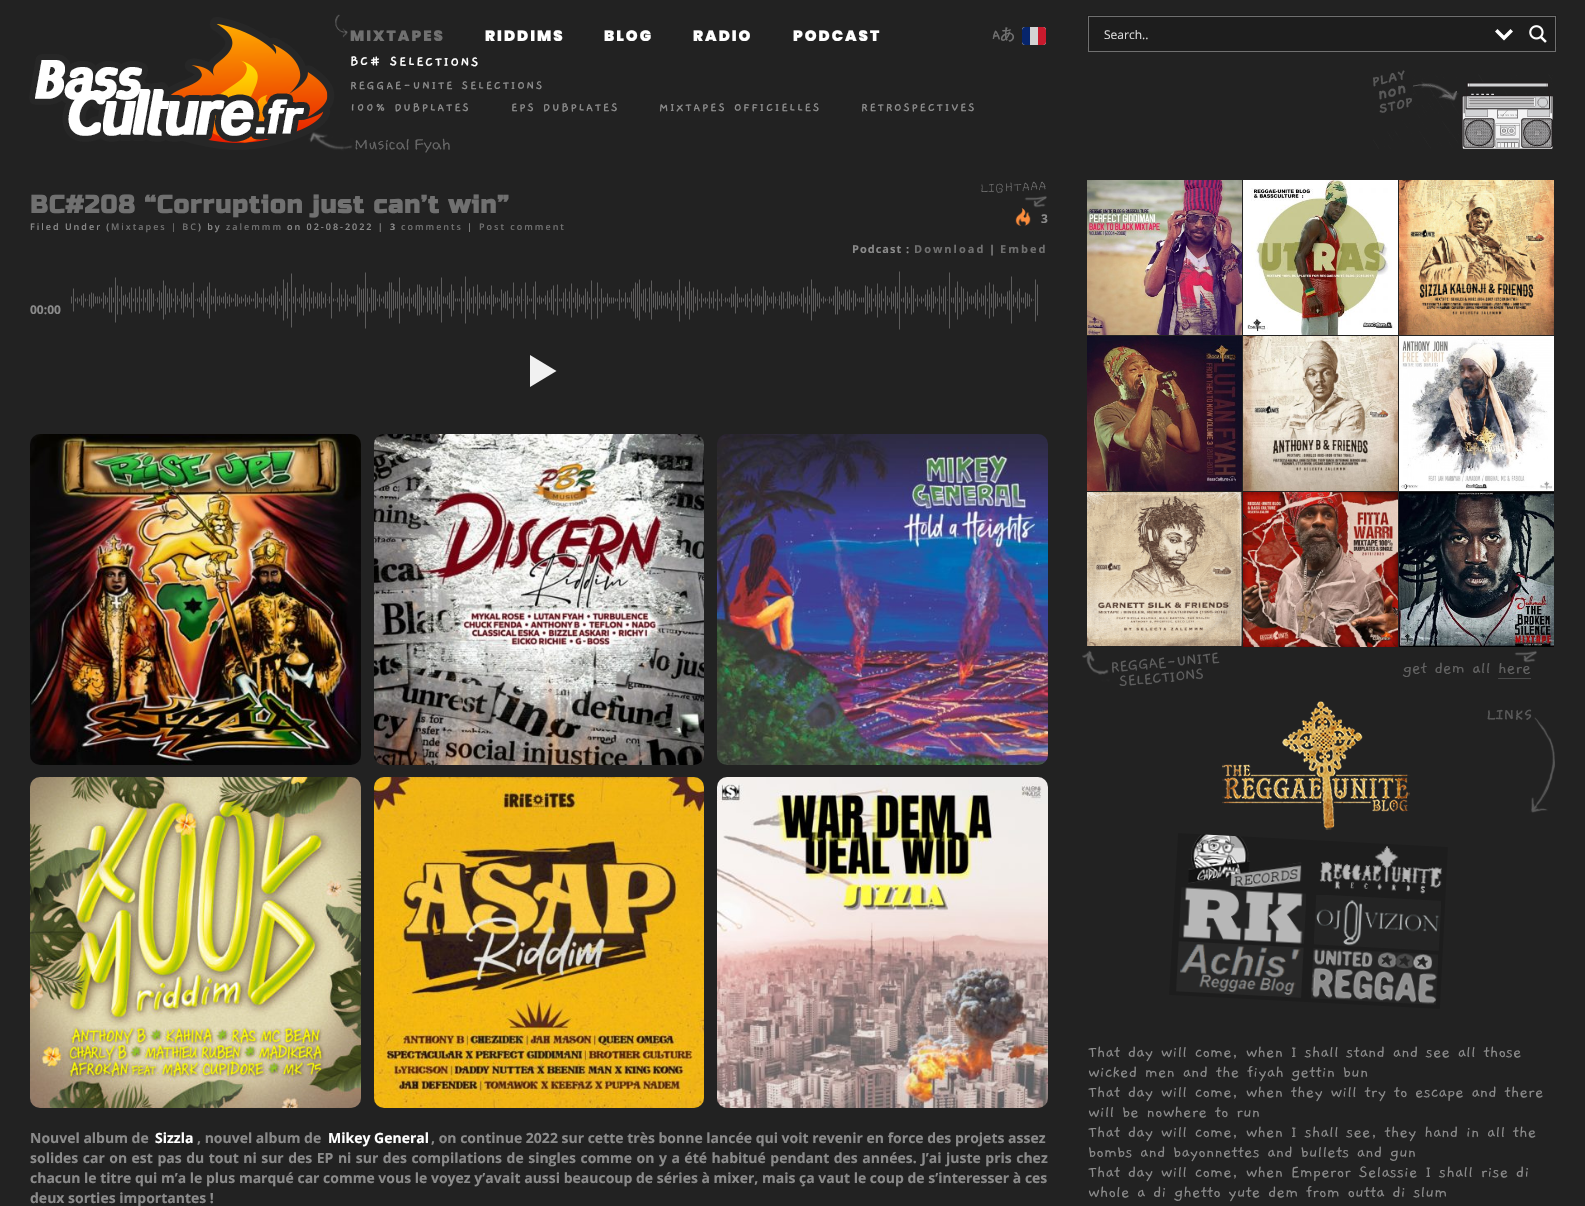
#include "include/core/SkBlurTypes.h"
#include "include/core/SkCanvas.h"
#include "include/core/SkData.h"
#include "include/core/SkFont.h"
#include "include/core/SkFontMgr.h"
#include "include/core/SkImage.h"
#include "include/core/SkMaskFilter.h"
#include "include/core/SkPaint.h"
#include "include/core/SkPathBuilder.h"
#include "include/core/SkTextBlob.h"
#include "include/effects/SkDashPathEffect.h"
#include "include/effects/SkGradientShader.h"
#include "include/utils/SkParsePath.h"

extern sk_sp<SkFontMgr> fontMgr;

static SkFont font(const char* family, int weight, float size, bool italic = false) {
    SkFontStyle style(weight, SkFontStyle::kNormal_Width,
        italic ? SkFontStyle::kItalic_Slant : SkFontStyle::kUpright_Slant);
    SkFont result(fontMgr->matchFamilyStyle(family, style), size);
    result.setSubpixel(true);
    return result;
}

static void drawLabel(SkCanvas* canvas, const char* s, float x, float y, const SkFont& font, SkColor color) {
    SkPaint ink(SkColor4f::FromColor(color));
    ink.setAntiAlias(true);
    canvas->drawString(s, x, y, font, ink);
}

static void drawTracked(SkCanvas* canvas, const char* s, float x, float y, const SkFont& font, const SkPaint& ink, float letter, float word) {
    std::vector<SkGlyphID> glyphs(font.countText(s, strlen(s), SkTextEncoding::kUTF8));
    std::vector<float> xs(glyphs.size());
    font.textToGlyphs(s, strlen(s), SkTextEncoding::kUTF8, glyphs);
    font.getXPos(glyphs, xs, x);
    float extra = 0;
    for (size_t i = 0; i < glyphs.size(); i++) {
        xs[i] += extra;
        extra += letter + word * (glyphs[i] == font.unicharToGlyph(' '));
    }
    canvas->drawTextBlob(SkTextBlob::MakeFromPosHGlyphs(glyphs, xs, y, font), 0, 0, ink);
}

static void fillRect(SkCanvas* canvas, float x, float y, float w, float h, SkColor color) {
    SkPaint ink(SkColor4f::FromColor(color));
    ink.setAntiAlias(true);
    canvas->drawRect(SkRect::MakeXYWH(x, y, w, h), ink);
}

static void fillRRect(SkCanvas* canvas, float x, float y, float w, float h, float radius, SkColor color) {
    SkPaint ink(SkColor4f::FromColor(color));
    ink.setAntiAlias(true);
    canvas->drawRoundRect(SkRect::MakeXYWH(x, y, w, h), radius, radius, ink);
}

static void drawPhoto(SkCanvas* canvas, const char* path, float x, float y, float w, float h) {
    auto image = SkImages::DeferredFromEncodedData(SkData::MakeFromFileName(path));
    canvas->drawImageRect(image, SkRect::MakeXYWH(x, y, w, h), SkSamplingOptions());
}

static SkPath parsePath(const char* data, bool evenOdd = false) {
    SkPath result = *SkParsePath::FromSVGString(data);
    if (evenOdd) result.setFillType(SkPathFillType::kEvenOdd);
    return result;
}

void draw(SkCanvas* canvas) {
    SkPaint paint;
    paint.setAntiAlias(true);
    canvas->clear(0xFF222222);
    SkFont font1 = font("Gaegu", 700, 15);
    drawLabel(canvas, "A", 992, 39, font1, 0xFF707070);
    SkFont font2 = font("WenQuanYi Zen Hei", 700, 15);
    drawLabel(canvas, "あ", 1000, 39, font2, 0xFF707070);
    fillRRect(canvas, 1022, 27, 24, 18, 3, 0xFFD3D3D3);
    paint.setColor(0xFF07256C);
    canvas->drawPath(parsePath("M1025 27H1030V45H1025C1023.5 45 1022 43.5 1022 42V30C1022 28.5 1023.5 27 1025 27Z"), paint);
    paint.setColor(0xFFC91A2D);
    canvas->drawPath(parsePath("M1038 27H1043C1044.5 27 1046 28.5 1046 30V42C1046 43.5 1044.5 45 1043 45H1038Z"), paint);
    drawPhoto(canvas, "assets/img1.png", 29, 17, 421, 136);
    drawPhoto(canvas, "assets/img2.png", 335, 14, 13, 24);
    SkFont font3 = font("Poppins", 900, 15);
    paint.setColor(0xFF707070);
    drawTracked(canvas, "MIXTAPES", 350, 41, font3, paint, 2, 0);
    SkFont font4 = font("Gaegu", 700, 14);
    paint.setColor(0xFFFFFFFF);
    canvas->save();
    canvas->rotate(0.5f, 350, 65);
    drawTracked(canvas, "BC# SELECTIONS", 350, 65, font4, paint, 2, 0);
    canvas->restore();
    SkFont font5 = font("Gaegu", 700, 12.5f);
    paint.setColor(0xFF8B8B8B);
    drawTracked(canvas, "REGGAE-UNITE SELECTIONS", 350, 89, font5, paint, 2, 0);
    drawTracked(canvas, "100% DUBPLATES", 350, 111, font5, paint, 2, 0);
    drawTracked(canvas, "EPS DUBPLATES", 511, 111, font5, paint, 2, 0);
    drawTracked(canvas, "MIXTAPES OFFICIELLES", 659, 111, font5, paint, 2, 0);
    drawTracked(canvas, "RETROSPECTIVES", 861, 111, font5, paint, 2, 0);
    paint.setColor(0xFFFFFFFF);
    drawTracked(canvas, "RIDDIMS", 485, 41, font3, paint, 2, 0);
    drawTracked(canvas, "BLOG", 604, 41, font3, paint, 2, 0);
    drawTracked(canvas, "RADIO", 693, 41, font3, paint, 2, 0);
    drawTracked(canvas, "PODCAST", 793, 41, font3, paint, 2, 0);
    fillRect(canvas, 1087, 15, 470, 32, 0xFF1D1D1D);
    fillRect(canvas, 1089, 47, 466, 4, 0xFF1D1D1D);
    paint.setStroke(true);
    paint.setStrokeWidth(1);
    paint.setColor(0xFF707070);
    canvas->drawRect(SkRect::MakeXYWH(1088.5f, 16.5f, 467, 35), paint);
    SkFont font6 = font("Open Sans", 400, 12);
    drawLabel(canvas, "Search..", 1104, 39, font6, 0xFFDDDDDD);
    paint.setStroke(false);
    paint.setColor(0xFFFFFFFF);
    canvas->drawPath(parsePath("M1510.5 29L1513 31.5L1504 40.5L1495 31.5L1497.5 29L1504 35.5Z"), paint);
    drawPhoto(canvas, "assets/img3.png", 1529, 25, 18, 18);
    drawPhoto(canvas, "assets/img4.png", 1373, 70, 180, 79);
    SkFont font7 = font("Russo One", 700, 25);
    paint.setColor(0xFF707070);
    drawTracked(canvas, "BC#208 “Corruption just can’t win”", 30, 213, font7, paint, 1, 0);
    SkFont font8 = font("Open Sans", 600, 9);
    paint.setColor(0xFF8B8B8B);
    drawTracked(canvas, "Filed Under (", 30, 230, font8, paint, 2, 0);
    paint.setColor(0xFF707070);
    drawTracked(canvas, "Mixtapes | BC", 111, 230, font8, paint, 2, 0);
    paint.setColor(0xFF8B8B8B);
    drawTracked(canvas, ") by", 198, 230, font8, paint, 2, 0);
    paint.setColor(0xFF707070);
    drawTracked(canvas, "zalemmm", 226, 230, font8, paint, 2, 0);
    paint.setColor(0xFF8B8B8B);
    drawTracked(canvas, "on 02-08-2022 |", 287, 230, font8, paint, 2, 0);
    SkFont font9 = font("Open Sans", 700, 9);
    drawTracked(canvas, "3", 390, 230, font9, paint, 2, 0);
    paint.setColor(0xFF707070);
    drawTracked(canvas, "comments", 401, 230, font8, paint, 2, 0);
    paint.setColor(0xFF8B8B8B);
    drawTracked(canvas, "|", 467, 230, font8, paint, 2, 0);
    paint.setColor(0xFF707070);
    drawTracked(canvas, "Post comment", 479, 230, font8, paint, 2, 0);
    drawPhoto(canvas, "assets/img5.png", 981, 181, 66, 27);
    drawPhoto(canvas, "assets/img6.png", 1015, 208, 16, 18);
    SkFont font10 = font("Open Sans", 700, 12);
    drawLabel(canvas, "3", 1041, 223, font10, 0xFF8B8B8B);
    SkFont font11 = font("Open Sans", 700, 11);
    paint.setColor(0xFF8B8B8B);
    drawTracked(canvas, "Podcast :", 852, 253, font11, paint, 1, 0);
    paint.setColor(0xFF707070);
    drawTracked(canvas, "Download", 914, 253, font11, paint, 2, 0);
    paint.setColor(0xFF8B8B8B);
    drawTracked(canvas, "|", 989, 253, font11, paint, 1, 0);
    paint.setColor(0xFF707070);
    drawTracked(canvas, "Embed", 1000, 253, font11, paint, 2, 0);
    drawLabel(canvas, "00:00", 30, 314, font10, 0xFF8B8B8B);
    drawPhoto(canvas, "assets/img7.png", 71, 271, 967, 59);
    paint.setColor(0xFFF1F1F1);
    canvas->drawPath(parsePath("M530 355L556.5 371L530 387Z"), paint);
    drawPhoto(canvas, "assets/img8.png", 30, 434, 331, 331);
    drawPhoto(canvas, "assets/img9.png", 374, 434, 330, 331);
    drawPhoto(canvas, "assets/img10.png", 717, 434, 331, 331);
    drawPhoto(canvas, "assets/img11.png", 30, 777, 331, 331);
    drawPhoto(canvas, "assets/img12.png", 374, 777, 330, 331);
    drawPhoto(canvas, "assets/img13.png", 717, 777, 331, 331);
    SkFont font12 = font("Open Sans", 700, 14);
    drawLabel(canvas, "Nouvel album de", 30, 1143, font12, 0xFF8B8B8B);
    drawLabel(canvas, "Sizzla", 155, 1143, font12, 0xFFFFFFFF);
    drawLabel(canvas, ", nouvel album de", 197, 1143, font12, 0xFF8B8B8B);
    drawLabel(canvas, "Mikey General", 328, 1143, font12, 0xFFFFFFFF);
    drawLabel(canvas, ", on continue 2022 sur cette très bonne lancée qui voit revenir en force des projets assez", 431, 1143, font12, 0xFF8B8B8B);
    paint.setColor(0xFF8B8B8B);
    drawTracked(canvas, "solides car on est pas du tout ni sur des EP ni sur des compilations de singles comme on y a été habitué pendant des années. J’ai juste pris chez", 30, 1163, font12, paint, 0, 0.85f);
    drawLabel(canvas, "chacun le titre qui m’a le plus marqué car comme vous le voyez y’avait aussi beaucoup de séries à mixer, mais ça vaut le coup de s’interesser à ces", 30, 1183, font12, 0xFF8B8B8B);
    drawLabel(canvas, "deux sorties importantes !", 30, 1203, font12, 0xFF8B8B8B);
    drawPhoto(canvas, "assets/img14.png", 1087, 180, 155, 155);
    drawPhoto(canvas, "assets/img15.png", 1243, 180, 155, 155);
    drawPhoto(canvas, "assets/img16.png", 1399, 180, 155, 155);
    drawPhoto(canvas, "assets/img17.png", 1087, 336, 155, 155);
    drawPhoto(canvas, "assets/img18.png", 1243, 336, 155, 155);
    drawPhoto(canvas, "assets/img19.png", 1399, 336, 155, 155);
    drawPhoto(canvas, "assets/img20.png", 1087, 492, 155, 154);
    drawPhoto(canvas, "assets/img21.png", 1243, 492, 155, 155);
    drawPhoto(canvas, "assets/img22.png", 1399, 492, 155, 155);
    drawPhoto(canvas, "assets/img23.png", 1082, 650, 455, 36);
    drawPhoto(canvas, "assets/img24.png", 1487, 709, 68, 104);
    drawPhoto(canvas, "assets/img25.png", 1222, 701, 188, 129);
    paint.setColor(0xFF1D1D1D);
    canvas->drawPath(parsePath("M1178 833L1448 847L1440 1009L1169 995Z"), paint);
    drawPhoto(canvas, "assets/img26.png", 1188, 834, 114, 54);
    drawPhoto(canvas, "assets/img27.png", 1319, 846, 123, 48);
    drawPhoto(canvas, "assets/img28.png", 1179, 887, 127, 57);
    drawPhoto(canvas, "assets/img29.png", 1314, 895, 127, 56);
    drawPhoto(canvas, "assets/img30.png", 1176, 941, 128, 57);
    drawPhoto(canvas, "assets/img31.png", 1311, 948, 127, 57);
    SkFont font13 = font("Gaegu", 400, 18);
    drawLabel(canvas, "That day will come, when I shall stand and see all those", 1088, 1057, font13, 0xFF8B8B8B);
    drawLabel(canvas, "wicked men and the fiyah gettin bun", 1088, 1077, font13, 0xFF8B8B8B);
    drawLabel(canvas, "That day will come, when they will try to escape and there", 1088, 1097, font13, 0xFF8B8B8B);
    drawLabel(canvas, "will be nowhere to run", 1088, 1117, font13, 0xFF8B8B8B);
    drawLabel(canvas, "That day will come, when I shall see, they hand in all the", 1088, 1137, font13, 0xFF8B8B8B);
    drawLabel(canvas, "bombs and bayonnettes and bullets and gun", 1088, 1157, font13, 0xFF8B8B8B);
    drawLabel(canvas, "That day will come, when Emperor Selassie I shall rise di", 1088, 1177, font13, 0xFF8B8B8B);
    drawLabel(canvas, "whole a di ghetto yute dem from outta di slum", 1088, 1197, font13, 0xFF8B8B8B);
}
